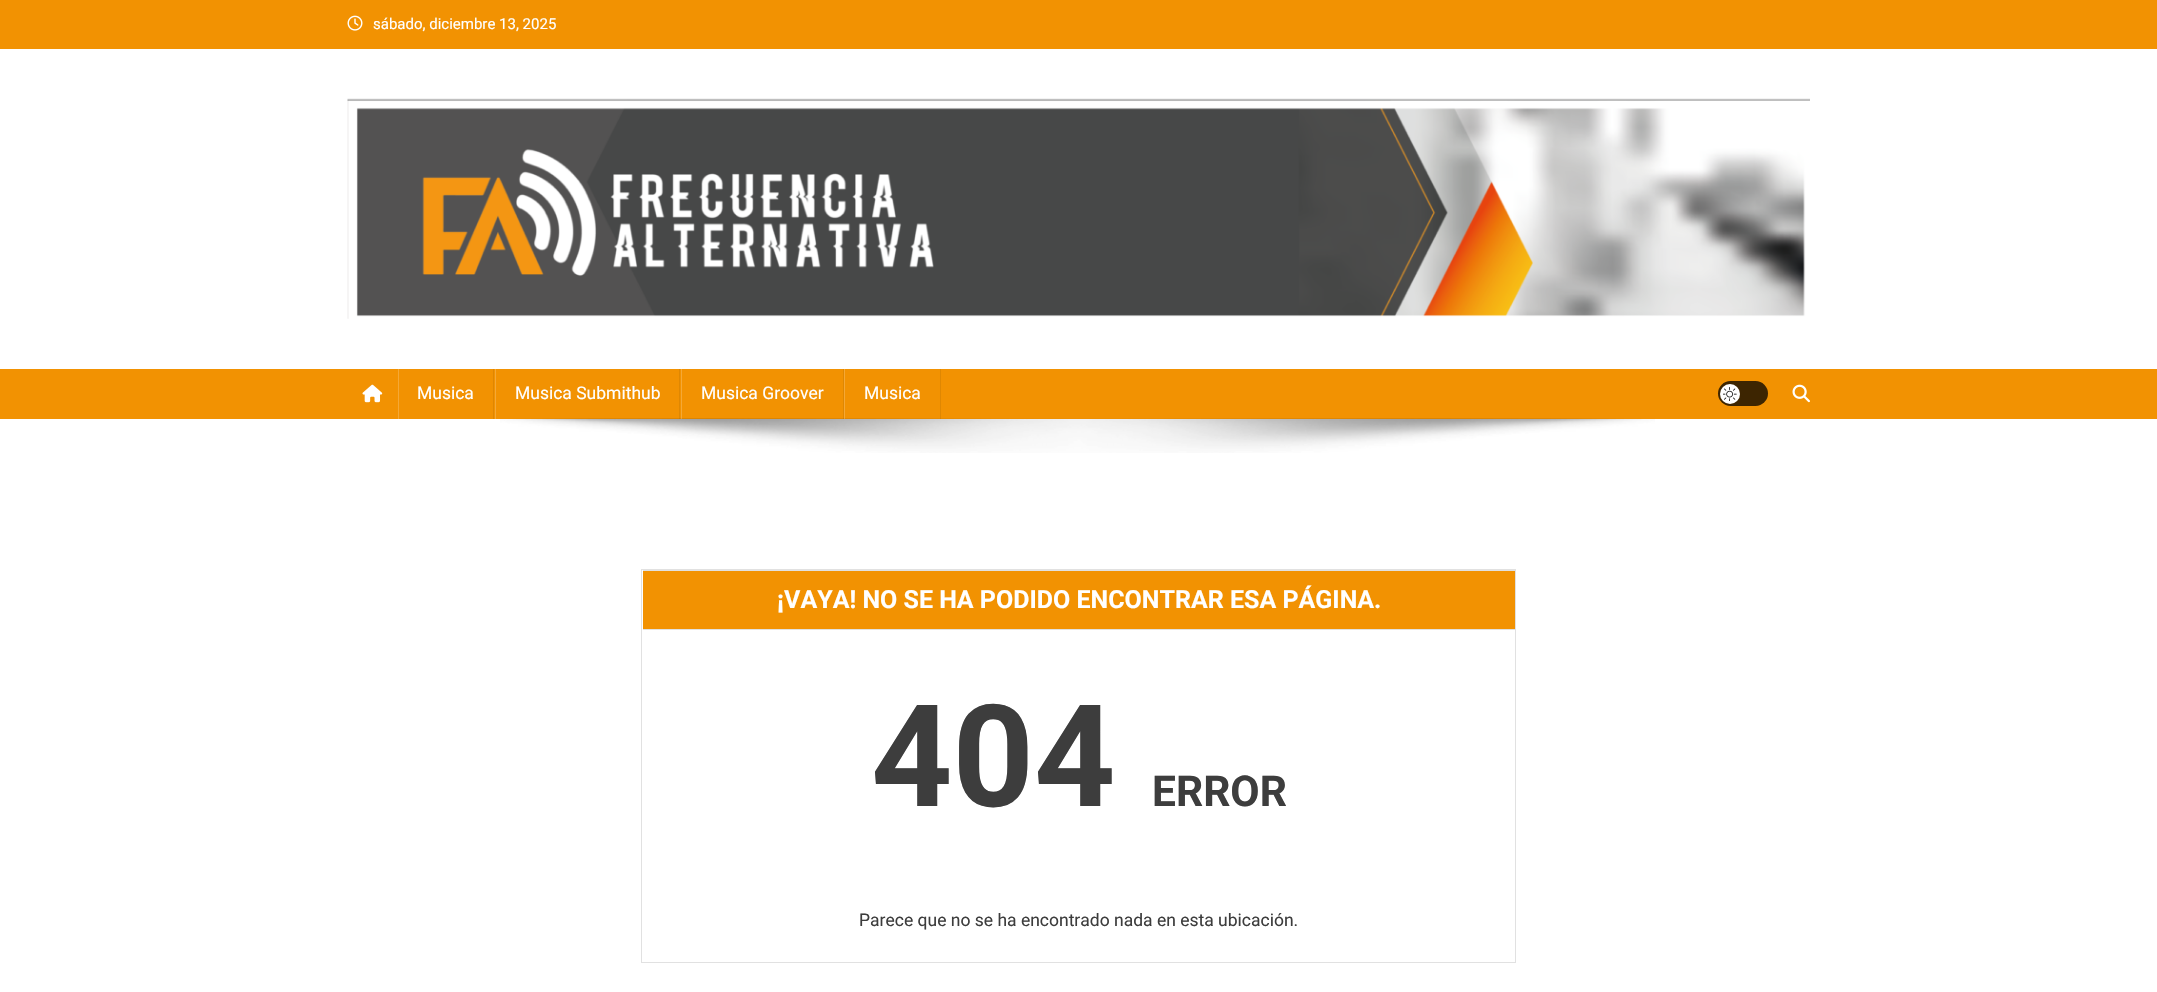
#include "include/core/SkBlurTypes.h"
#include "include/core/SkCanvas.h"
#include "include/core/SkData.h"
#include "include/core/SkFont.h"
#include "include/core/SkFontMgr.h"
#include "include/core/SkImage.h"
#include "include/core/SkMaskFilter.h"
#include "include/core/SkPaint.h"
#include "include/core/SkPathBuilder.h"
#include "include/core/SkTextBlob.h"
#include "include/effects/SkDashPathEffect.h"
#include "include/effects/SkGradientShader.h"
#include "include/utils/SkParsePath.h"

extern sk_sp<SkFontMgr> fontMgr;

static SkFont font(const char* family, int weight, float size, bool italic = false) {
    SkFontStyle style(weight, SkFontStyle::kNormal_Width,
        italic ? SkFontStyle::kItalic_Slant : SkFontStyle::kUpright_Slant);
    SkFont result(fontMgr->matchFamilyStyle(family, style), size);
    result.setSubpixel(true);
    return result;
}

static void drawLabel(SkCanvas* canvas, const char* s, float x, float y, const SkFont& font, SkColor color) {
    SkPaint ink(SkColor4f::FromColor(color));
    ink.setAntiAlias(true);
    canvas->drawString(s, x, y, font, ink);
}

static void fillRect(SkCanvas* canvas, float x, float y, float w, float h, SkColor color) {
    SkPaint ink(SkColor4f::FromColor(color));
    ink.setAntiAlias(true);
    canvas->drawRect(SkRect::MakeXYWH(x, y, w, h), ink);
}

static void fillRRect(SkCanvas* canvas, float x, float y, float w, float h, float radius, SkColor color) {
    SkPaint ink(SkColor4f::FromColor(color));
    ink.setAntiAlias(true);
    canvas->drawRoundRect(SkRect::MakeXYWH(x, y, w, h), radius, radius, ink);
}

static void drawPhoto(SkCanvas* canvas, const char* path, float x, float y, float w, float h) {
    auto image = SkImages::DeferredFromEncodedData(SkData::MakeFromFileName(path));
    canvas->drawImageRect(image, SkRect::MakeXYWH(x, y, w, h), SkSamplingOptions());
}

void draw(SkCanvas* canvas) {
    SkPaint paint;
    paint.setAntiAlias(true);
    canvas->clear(0xFFFFFFFF);
    fillRect(canvas, 0, 0, 2157, 49, 0xFFF29202);
    drawPhoto(canvas, "assets/img1.png", 347, 15, 16, 16);
    SkFont font1 = font("Roboto", 400, 15);
    drawLabel(canvas, "sábado, diciembre 13, 2025", 373, 29, font1, 0xFFFFFFFF);
    drawPhoto(canvas, "assets/img2.png", 347, 98, 1463, 221);
    fillRect(canvas, 0, 369, 2157, 50, 0xFFF29202);
    drawPhoto(canvas, "assets/img3.png", 362, 384, 21, 19);
    fillRect(canvas, 493, 369, 1, 50, 0xFFDF8602);
    fillRect(canvas, 398, 369, 1, 50, 0xFFF5A835);
    SkFont font2 = font("Roboto", 400, 17.5f);
    drawLabel(canvas, "Musica", 417, 399, font2, 0xFFFFFFFF);
    drawPhoto(canvas, "assets/img6.png", 500, 418, 1155, 35);
    fillRect(canvas, 679, 369, 1, 50, 0x14000000);
    fillRect(canvas, 495, 369, 1, 50, 0xFFF5A835);
    drawLabel(canvas, "Musica Submithub", 515, 399, font2, 0xFFFFFFFF);
    fillRect(canvas, 843, 369, 1, 50, 0x14000000);
    fillRect(canvas, 681, 369, 1, 50, 0x33FFFFFF);
    drawLabel(canvas, "Musica Groover", 701, 399, font2, 0xFFFFFFFF);
    fillRect(canvas, 940, 369, 1, 50, 0x14000000);
    fillRect(canvas, 844, 369, 1, 50, 0x33FFFFFF);
    drawLabel(canvas, "Musica", 864, 399, font2, 0xFFFFFFFF);
    fillRRect(canvas, 1718, 381, 50, 25, 12.5f, 0xFF3D2501);
    paint.setColor(0xFFFFFFFF);
    canvas->drawCircle(1730, 394, 10, paint);
    drawPhoto(canvas, "assets/img4.png", 1723, 387, 14, 14);
    drawPhoto(canvas, "assets/img5.png", 1792, 384, 18, 19);
    paint.setStroke(true);
    paint.setStrokeWidth(1);
    paint.setColor(0xFFE1E1E1);
    canvas->drawRect(SkRect::MakeXYWH(641.5f, 569.5f, 874, 393), paint);
    fillRect(canvas, 643, 571, 872, 58, 0xFFF29202);
    fillRect(canvas, 643, 570, 872, 1, 0xFFE1E1E1);
    fillRect(canvas, 643, 629, 872, 1, 0xFFE1E1E1);
    SkFont font3 = font("Roboto", 700, 25);
    drawLabel(canvas, "¡VAYA! NO SE HA PODIDO ENCONTRAR ESA PÁGINA.", 777, 608, font3, 0xFFFFFFFF);
    SkFont font4 = font("Roboto", 700, 142);
    drawLabel(canvas, "404", 871, 806, font4, 0xFF3D3D3D);
    SkFont font5 = font("Roboto", 700, 42.5f);
    drawLabel(canvas, "ERROR", 1152, 806, font5, 0xFF3D3D3D);
    drawLabel(canvas, "Parece que no se ha encontrado nada en esta ubicación.", 859, 926, font2, 0xFF3D3D3D);
}
